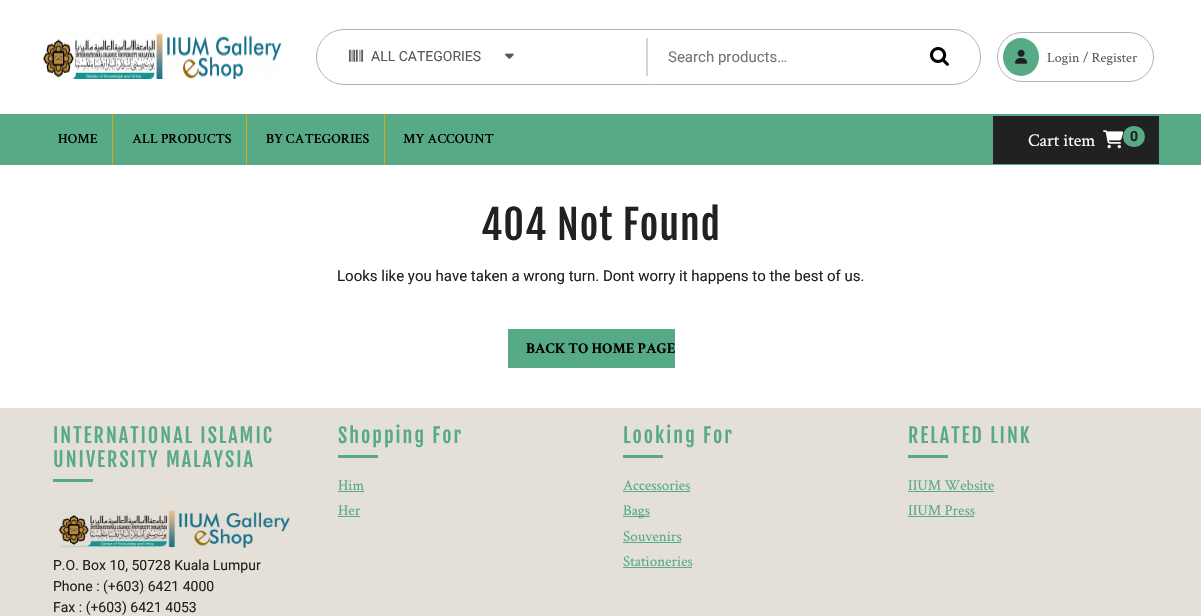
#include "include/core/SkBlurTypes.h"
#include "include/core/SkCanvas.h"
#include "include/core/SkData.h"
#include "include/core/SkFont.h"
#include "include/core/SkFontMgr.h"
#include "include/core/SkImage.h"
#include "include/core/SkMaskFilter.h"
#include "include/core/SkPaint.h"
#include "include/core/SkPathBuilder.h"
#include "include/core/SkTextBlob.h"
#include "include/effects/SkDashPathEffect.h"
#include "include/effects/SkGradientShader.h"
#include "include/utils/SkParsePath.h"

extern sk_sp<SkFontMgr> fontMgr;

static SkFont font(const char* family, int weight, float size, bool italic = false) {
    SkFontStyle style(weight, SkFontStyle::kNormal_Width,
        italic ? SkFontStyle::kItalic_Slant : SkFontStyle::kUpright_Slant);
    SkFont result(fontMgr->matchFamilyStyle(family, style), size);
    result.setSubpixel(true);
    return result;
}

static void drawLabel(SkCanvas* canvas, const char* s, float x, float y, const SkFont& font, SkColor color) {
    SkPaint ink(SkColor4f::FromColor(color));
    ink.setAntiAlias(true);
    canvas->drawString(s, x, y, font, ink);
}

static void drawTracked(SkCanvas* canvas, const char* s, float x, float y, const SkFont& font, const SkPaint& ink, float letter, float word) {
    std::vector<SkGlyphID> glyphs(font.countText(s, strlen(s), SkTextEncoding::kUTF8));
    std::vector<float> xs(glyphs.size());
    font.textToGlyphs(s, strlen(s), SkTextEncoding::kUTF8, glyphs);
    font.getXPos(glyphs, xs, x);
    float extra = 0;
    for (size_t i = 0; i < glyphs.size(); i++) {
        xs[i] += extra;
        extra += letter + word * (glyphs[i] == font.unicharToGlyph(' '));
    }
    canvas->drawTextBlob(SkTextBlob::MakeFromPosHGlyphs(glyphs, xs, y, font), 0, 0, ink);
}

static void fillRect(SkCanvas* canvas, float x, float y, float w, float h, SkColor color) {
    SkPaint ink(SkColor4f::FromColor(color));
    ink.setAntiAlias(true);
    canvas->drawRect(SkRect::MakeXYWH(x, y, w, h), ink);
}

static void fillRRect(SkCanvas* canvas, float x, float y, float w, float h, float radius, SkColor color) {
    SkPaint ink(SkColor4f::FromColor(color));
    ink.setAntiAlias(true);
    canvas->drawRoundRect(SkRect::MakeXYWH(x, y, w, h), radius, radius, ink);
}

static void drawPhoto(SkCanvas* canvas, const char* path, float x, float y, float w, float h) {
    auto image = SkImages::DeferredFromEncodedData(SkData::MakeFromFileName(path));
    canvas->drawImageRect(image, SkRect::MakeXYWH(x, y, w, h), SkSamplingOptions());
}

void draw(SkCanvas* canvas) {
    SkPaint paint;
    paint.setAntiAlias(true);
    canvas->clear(0xFFFFFFFF);
    drawPhoto(canvas, "assets/img1.png", 43, 33, 239, 46);
    paint.setStroke(true);
    paint.setStrokeWidth(1);
    paint.setColor(0xFFB3B3B3);
    canvas->drawRoundRect(SkRect::MakeXYWH(316.5f, 29.5f, 664, 55), 27.5f, 27.5f, paint);
    fillRect(canvas, 646, 38, 2, 38, 0xFFD5D5D5);
    drawPhoto(canvas, "assets/img2.png", 349, 49, 14, 13);
    SkFont font1 = font("Roboto", 400, 14);
    drawLabel(canvas, "ALL CATEGORIES", 371, 61, font1, 0xFF595959);
    drawPhoto(canvas, "assets/img3.png", 505, 53, 9, 6);
    SkFont font2 = font("Roboto", 400, 15);
    drawLabel(canvas, "Search products…", 668, 62, font2, 0xFF757575);
    drawPhoto(canvas, "assets/img4.png", 930, 47, 19, 19);
    canvas->drawRoundRect(SkRect::MakeXYWH(997.5f, 32.5f, 156, 49), 24.5f, 24.5f, paint);
    paint.setStroke(false);
    paint.setColor(0xFF57AA86);
    canvas->drawOval(SkRect::MakeXYWH(1003, 38, 36, 38), paint);
    drawPhoto(canvas, "assets/img5.png", 1015, 49, 13, 15);
    SkFont font3 = font("Crimson Text", 400, 14);
    drawLabel(canvas, "Login / Register", 1047, 62, font3, 0xFF595959);
    fillRect(canvas, 0, 114, 1201, 51, 0xFF57AA86);
    fillRect(canvas, 112, 114, 1, 51, 0xFFD6AC0D);
    SkFont font4 = font("Crimson Text", 600, 14);
    drawLabel(canvas, "HOME", 58, 143, font4, 0xFF000000);
    fillRect(canvas, 246, 114, 1, 51, 0xFFD6AC0D);
    drawLabel(canvas, "ALL PRODUCTS", 132, 143, font4, 0xFF000000);
    fillRect(canvas, 384, 114, 1, 51, 0xFFD6AC0D);
    drawLabel(canvas, "BY CATEGORIES", 266, 143, font4, 0xFF000000);
    drawLabel(canvas, "MY ACCOUNT", 403, 143, font4, 0xFF000000);
    fillRect(canvas, 993, 116, 166, 48, 0xFF212121);
    SkFont font5 = font("Crimson Text", 400, 18);
    drawLabel(canvas, "Cart item", 1028, 146, font5, 0xFFFFFFFF);
    drawPhoto(canvas, "assets/img6.png", 1103, 130, 21, 19);
    fillRRect(canvas, 1123, 126, 22, 21, 10.5f, 0xFF57AA86);
    SkFont font6 = font("Roboto", 700, 14);
    drawLabel(canvas, "0", 1130, 141, font6, 0xFF212121);
    SkFont font7 = font("Fjalla One", 400, 40);
    paint.setColor(0xFF212121);
    drawTracked(canvas, "404 Not Found", 481, 240, font7, paint, 1, 0);
    drawLabel(canvas, "Looks like you have taken a wrong turn. Dont worry it happens to the best of us.", 337, 281, font2, 0xFF212121);
    fillRect(canvas, 508, 329, 167, 39, 0xFF57AA86);
    SkFont font8 = font("Crimson Text", 700, 15);
    drawLabel(canvas, "BACK TO HOME PAGE", 526, 353, font8, 0xFF000000);
    fillRect(canvas, 0, 408, 1201, 208, 0xFFE5E0D7);
    SkFont font9 = font("Fjalla One", 400, 20);
    paint.setColor(0xFF57AA86);
    drawTracked(canvas, "INTERNATIONAL ISLAMIC", 53, 443, font9, paint, 2, 0);
    drawTracked(canvas, "UNIVERSITY MALAYSIA", 53, 467, font9, paint, 2, 0);
    fillRect(canvas, 53, 479, 40, 3, 0xFF57AA86);
    drawPhoto(canvas, "assets/img7.png", 58, 510, 232, 38);
    drawLabel(canvas, "P.O. Box 10, 50728 Kuala Lumpur", 53, 570, font1, 0xFF212121);
    drawLabel(canvas, "Phone : (+603) 6421 4000", 53, 591, font1, 0xFF212121);
    drawLabel(canvas, "Fax : (+603) 6421 4053", 53, 612, font1, 0xFF212121);
    drawTracked(canvas, "Shopping For", 338, 443, font9, paint, 2, 0);
    fillRect(canvas, 338, 455, 40, 3, 0xFF57AA86);
    SkFont font10 = font("Crimson Text", 400, 15);
    drawLabel(canvas, "Him", 338, 490, font10, 0xFF57AA86);
    fillRect(canvas, 338, 491, 26, 1, 0xFF57AA86);
    drawLabel(canvas, "Her", 338, 515, font10, 0xFF57AA86);
    fillRect(canvas, 338, 516, 22, 1, 0xFF57AA86);
    drawTracked(canvas, "Looking For", 623, 443, font9, paint, 2, 0);
    fillRect(canvas, 623, 455, 40, 3, 0xFF57AA86);
    drawLabel(canvas, "Accessories", 623, 490, font10, 0xFF57AA86);
    fillRect(canvas, 623, 491, 67, 1, 0xFF57AA86);
    fillRect(canvas, 623, 516, 27, 1, 0xFF57AA86);
    drawLabel(canvas, "Bags", 623, 515, font10, 0xFF57AA86);
    drawLabel(canvas, "Souvenirs", 623, 541, font10, 0xFF57AA86);
    fillRect(canvas, 623, 542, 58, 1, 0xFF57AA86);
    drawLabel(canvas, "Stationeries", 623, 566, font10, 0xFF57AA86);
    fillRect(canvas, 623, 567, 69, 1, 0xFF57AA86);
    drawTracked(canvas, "RELATED LINK", 908, 443, font9, paint, 2, 0);
    fillRect(canvas, 908, 455, 40, 3, 0xFF57AA86);
    drawLabel(canvas, "IIUM Website", 908, 490, font10, 0xFF57AA86);
    fillRect(canvas, 908, 491, 86, 1, 0xFF57AA86);
    drawLabel(canvas, "IIUM Press", 908, 515, font10, 0xFF57AA86);
    fillRect(canvas, 908, 516, 66, 1, 0xFF57AA86);
}
